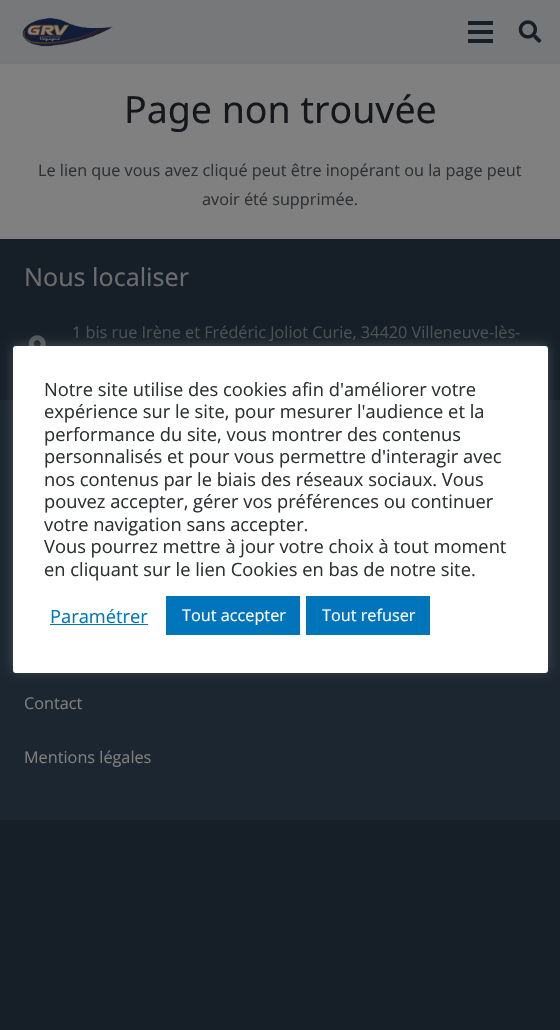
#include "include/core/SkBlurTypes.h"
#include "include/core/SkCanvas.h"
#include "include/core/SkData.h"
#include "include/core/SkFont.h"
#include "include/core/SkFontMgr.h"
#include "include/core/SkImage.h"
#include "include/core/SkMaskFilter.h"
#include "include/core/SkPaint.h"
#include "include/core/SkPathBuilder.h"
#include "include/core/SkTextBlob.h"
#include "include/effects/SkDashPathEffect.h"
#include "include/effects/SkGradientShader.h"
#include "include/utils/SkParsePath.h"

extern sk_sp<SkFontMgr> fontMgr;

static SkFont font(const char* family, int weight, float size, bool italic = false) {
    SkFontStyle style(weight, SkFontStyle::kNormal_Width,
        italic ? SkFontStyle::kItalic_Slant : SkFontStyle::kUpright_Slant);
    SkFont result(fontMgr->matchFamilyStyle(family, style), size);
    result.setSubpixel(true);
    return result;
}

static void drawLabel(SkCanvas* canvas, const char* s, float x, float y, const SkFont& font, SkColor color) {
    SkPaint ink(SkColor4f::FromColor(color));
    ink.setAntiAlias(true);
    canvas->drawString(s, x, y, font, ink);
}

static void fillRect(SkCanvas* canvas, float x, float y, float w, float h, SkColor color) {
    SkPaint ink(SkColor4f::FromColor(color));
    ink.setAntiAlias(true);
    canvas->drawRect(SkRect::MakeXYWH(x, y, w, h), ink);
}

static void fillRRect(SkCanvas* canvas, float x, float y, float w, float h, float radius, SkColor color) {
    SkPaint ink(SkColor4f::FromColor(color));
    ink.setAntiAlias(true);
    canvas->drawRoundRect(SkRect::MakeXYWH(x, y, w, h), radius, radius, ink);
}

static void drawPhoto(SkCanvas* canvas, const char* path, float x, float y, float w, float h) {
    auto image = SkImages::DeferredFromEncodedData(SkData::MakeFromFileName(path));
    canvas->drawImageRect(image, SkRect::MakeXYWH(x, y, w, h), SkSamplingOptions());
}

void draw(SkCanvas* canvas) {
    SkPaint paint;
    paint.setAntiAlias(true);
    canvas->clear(0xFF161F28);
    fillRect(canvas, 0, 64, 560, 175, 0xFF808080);
    fillRect(canvas, 0, 63, 560, 1, 0xFF767676);
    fillRect(canvas, 0, 0, 560, 63, 0xFF777879);
    drawPhoto(canvas, "assets/img1.png", 22, 18, 91, 29);
    fillRect(canvas, 468, 30, 25, 4, 0xFF161F28);
    fillRect(canvas, 468, 21, 25, 4, 0xFF161F28);
    fillRect(canvas, 468, 39, 25, 4, 0xFF161F28);
    drawPhoto(canvas, "assets/img2.png", 518, 20, 24, 23);
    SkFont font1 = font("Noto Sans", 400, 37.5f);
    drawLabel(canvas, "Page non trouvée", 124, 123, font1, 0xFF15171A);
    SkFont font2 = font("Open Sans", 400, 16.25f);
    drawLabel(canvas, "Le lien que vous avez cliqué peut être inopérant ou la page peut", 38, 176, font2, 0xFF2E3133);
    drawLabel(canvas, "avoir été supprimée.", 202, 205, font2, 0xFF2E3133);
    SkFont font3 = font("Noto Sans", 400, 25);
    drawLabel(canvas, "Nous localiser", 24, 286, font3, 0xFF6A6C6E);
    drawPhoto(canvas, "assets/img3.png", 28, 335, 18, 11);
    drawLabel(canvas, "1 bis rue Irène et Frédéric Joliot Curie, 34420 Villeneuve-lès-", 72, 338, font2, 0xFF4A4F52);
    fillRect(canvas, 0, 400, 560, 420, 0xFF1C2630);
    drawLabel(canvas, "Contact", 24, 709, font2, 0xFF808080);
    drawLabel(canvas, "Mentions légales", 24, 763, font2, 0xFF808080);
    paint.setColor(0x4DACABAB);
    paint.setMaskFilter(SkMaskFilter::MakeBlur(kNormal_SkBlurStyle, 6));
    canvas->drawRoundRect(SkRect::MakeXYWH(13, 345, 535, 326), 3, 3, paint);
    paint.setMaskFilter(nullptr);
    fillRRect(canvas, 13, 346, 535, 327, 3, 0xFFFFFFFF);
    SkFont font4 = font("Open Sans", 400, 18.3f);
    drawLabel(canvas, "Notre site utilise des cookies afin d'améliorer votre", 44, 396, font4, 0xFF2E3133);
    drawLabel(canvas, "expérience sur le site, pour mesurer l'audience et la", 44, 418, font4, 0xFF2E3133);
    drawLabel(canvas, "performance du site, vous montrer des contenus", 44, 441, font4, 0xFF2E3133);
    drawLabel(canvas, "personnalisés et pour vous permettre d'interagir avec", 44, 463, font4, 0xFF2E3133);
    drawLabel(canvas, "nos contenus par le biais des réseaux sociaux. Vous", 44, 486, font4, 0xFF2E3133);
    drawLabel(canvas, "pouvez accepter, gérer vos préférences ou continuer", 44, 508, font4, 0xFF2E3133);
    drawLabel(canvas, "votre navigation sans accepter.", 44, 531, font4, 0xFF2E3133);
    drawLabel(canvas, "Vous pourrez mettre à jour votre choix à tout moment", 44, 553, font4, 0xFF2E3133);
    drawLabel(canvas, "en cliquant sur le lien Cookies en bas de notre site.", 44, 576, font4, 0xFF2E3133);
    drawLabel(canvas, "Paramétrer", 50, 623, font4, 0xFF0075BB);
    fillRect(canvas, 50, 624, 98, 1, 0xFF0075BB);
    fillRect(canvas, 166, 596, 134, 39, 0xFF0075BB);
    drawLabel(canvas, "Tout accepter", 182, 621, font2, 0xFFFFFFFF);
    fillRect(canvas, 306, 596, 124, 39, 0xFF0075BB);
    drawLabel(canvas, "Tout refuser", 322, 621, font2, 0xFFFFFFFF);
}
